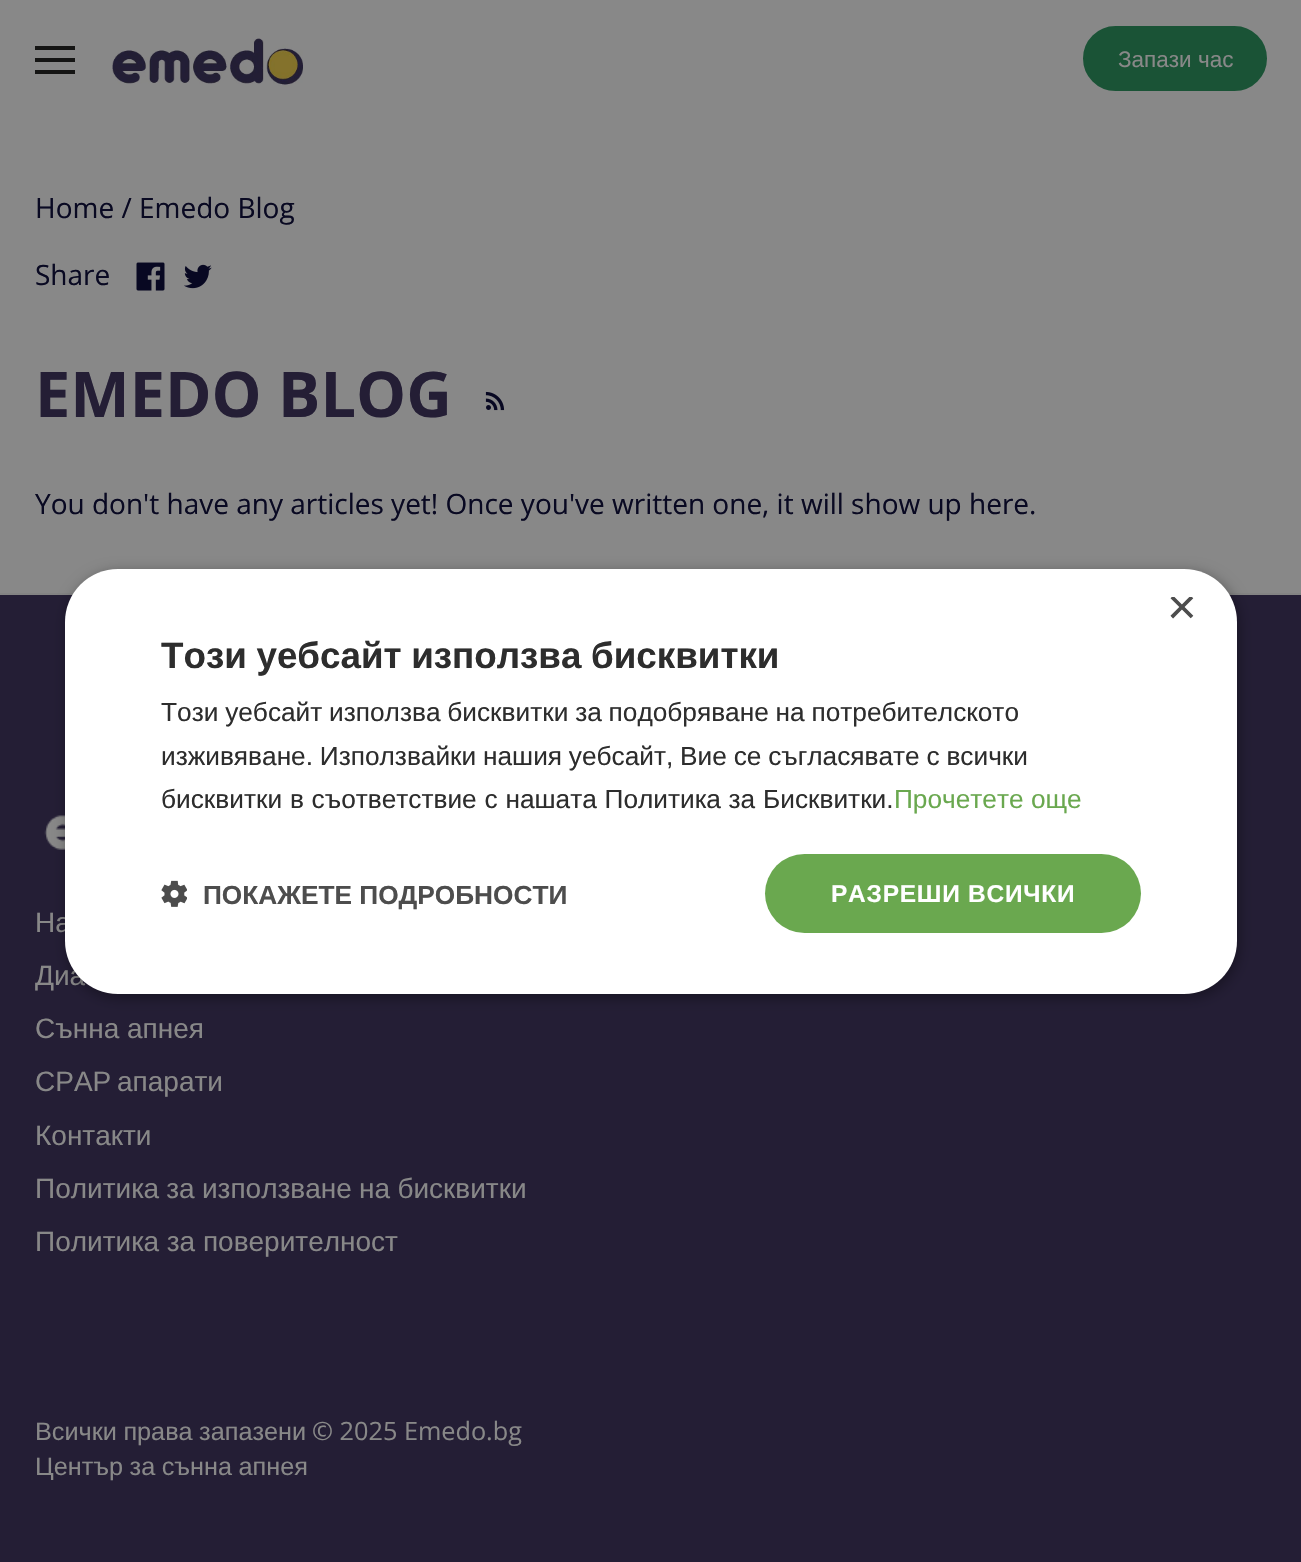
#include "include/core/SkBlurTypes.h"
#include "include/core/SkCanvas.h"
#include "include/core/SkData.h"
#include "include/core/SkFont.h"
#include "include/core/SkFontMgr.h"
#include "include/core/SkImage.h"
#include "include/core/SkMaskFilter.h"
#include "include/core/SkPaint.h"
#include "include/core/SkPathBuilder.h"
#include "include/core/SkTextBlob.h"
#include "include/effects/SkDashPathEffect.h"
#include "include/effects/SkGradientShader.h"
#include "include/utils/SkParsePath.h"

extern sk_sp<SkFontMgr> fontMgr;

static SkFont font(const char* family, int weight, float size, bool italic = false) {
    SkFontStyle style(weight, SkFontStyle::kNormal_Width,
        italic ? SkFontStyle::kItalic_Slant : SkFontStyle::kUpright_Slant);
    SkFont result(fontMgr->matchFamilyStyle(family, style), size);
    result.setSubpixel(true);
    return result;
}

static void drawLabel(SkCanvas* canvas, const char* s, float x, float y, const SkFont& font, SkColor color) {
    SkPaint ink(SkColor4f::FromColor(color));
    ink.setAntiAlias(true);
    canvas->drawString(s, x, y, font, ink);
}

static void drawTracked(SkCanvas* canvas, const char* s, float x, float y, const SkFont& font, const SkPaint& ink, float letter, float word) {
    std::vector<SkGlyphID> glyphs(font.countText(s, strlen(s), SkTextEncoding::kUTF8));
    std::vector<float> xs(glyphs.size());
    font.textToGlyphs(s, strlen(s), SkTextEncoding::kUTF8, glyphs);
    font.getXPos(glyphs, xs, x);
    float extra = 0;
    for (size_t i = 0; i < glyphs.size(); i++) {
        xs[i] += extra;
        extra += letter + word * (glyphs[i] == font.unicharToGlyph(' '));
    }
    canvas->drawTextBlob(SkTextBlob::MakeFromPosHGlyphs(glyphs, xs, y, font), 0, 0, ink);
}

static void fillRect(SkCanvas* canvas, float x, float y, float w, float h, SkColor color) {
    SkPaint ink(SkColor4f::FromColor(color));
    ink.setAntiAlias(true);
    canvas->drawRect(SkRect::MakeXYWH(x, y, w, h), ink);
}

static void fillRRect(SkCanvas* canvas, float x, float y, float w, float h, float radius, SkColor color) {
    SkPaint ink(SkColor4f::FromColor(color));
    ink.setAntiAlias(true);
    canvas->drawRoundRect(SkRect::MakeXYWH(x, y, w, h), radius, radius, ink);
}

static void drawPhoto(SkCanvas* canvas, const char* path, float x, float y, float w, float h) {
    auto image = SkImages::DeferredFromEncodedData(SkData::MakeFromFileName(path));
    canvas->drawImageRect(image, SkRect::MakeXYWH(x, y, w, h), SkSamplingOptions());
}

void draw(SkCanvas* canvas) {
    SkPaint paint;
    paint.setAntiAlias(true);
    canvas->clear(0xFF241E35);
    fillRect(canvas, 0, 0, 1301, 593, 0xFF888888);
    fillRect(canvas, 35, 46, 40, 4, 0xFF151514);
    fillRect(canvas, 35, 58, 40, 4, 0xFF151514);
    fillRect(canvas, 35, 70, 40, 4, 0xFF151514);
    drawPhoto(canvas, "assets/img1.png", 112, 38, 191, 49);
    paint.setColor(0xFF1A5336);
    canvas->drawRoundRect(SkRect::MakeXYWH(1085, 28, 180, 61), 30.5f, 30.5f, paint);
    paint.setStroke(true);
    paint.setStrokeWidth(4);
    canvas->drawRoundRect(SkRect::MakeXYWH(1085, 28, 180, 61), 30.5f, 30.5f, paint);
    SkFont font1 = font("Liberation Sans", 400, 22.5f);
    drawLabel(canvas, "Запази час", 1118, 67, font1, 0xFF888888);
    SkFont font2 = font("Open Sans", 400, 28);
    drawLabel(canvas, "Home / Emedo Blog", 35, 218, font2, 0xFF090922);
    drawLabel(canvas, "Share", 35, 285, font2, 0xFF090922);
    drawPhoto(canvas, "assets/img2.png", 136, 262, 29, 29);
    drawPhoto(canvas, "assets/img3.png", 184, 264, 28, 25);
    SkFont font3 = font("Open Sans", 700, 63);
    drawLabel(canvas, "EMEDO BLOG", 35, 417, font3, 0xFF241E35);
    drawPhoto(canvas, "assets/img4.png", 485, 391, 20, 20);
    drawLabel(canvas, "You don't have any articles yet! Once you've written one, it will show up here.", 35, 514, font2, 0xFF090922);
    fillRect(canvas, 0, 593, 1301, 2, 0xFF838383);
    drawPhoto(canvas, "assets/img5.png", 44, 815, 21, 35);
    SkFont font4 = font("Liberation Sans", 400, 28);
    drawLabel(canvas, "На", 35, 932, font4, 0xFF888888);
    drawLabel(canvas, "Диа", 35, 985, font4, 0xFF888888);
    drawLabel(canvas, "Сънна апнея", 35, 1038, font4, 0xFF888888);
    paint.setStroke(false);
    paint.setColor(0xFF888888);
    drawTracked(canvas, "CPAP апарати", 35, 1091, font4, paint, 0, -2);
    drawLabel(canvas, "Контакти", 35, 1145, font4, 0xFF888888);
    drawTracked(canvas, "Политика за използване на бисквитки", 35, 1198, font4, paint, 0, -0.5f);
    drawLabel(canvas, "Политика за поверителност", 35, 1251, font4, 0xFF888888);
    SkFont font5 = font("Liberation Sans", 400, 25.25f);
    drawTracked(canvas, "Всички права запазени", 35, 1440, font5, paint, 0, -0.5f);
    SkFont font6 = font("Open Sans", 400, 25.25f);
    drawLabel(canvas, "© 2025 Emedo.bg", 312, 1440, font6, 0xFF888888);
    drawTracked(canvas, "Център за сънна апнея", 35, 1475, font5, paint, 0, -0.5f);
    paint.setColor(0x59000000);
    paint.setMaskFilter(SkMaskFilter::MakeBlur(kNormal_SkBlurStyle, 7));
    canvas->drawRoundRect(SkRect::MakeXYWH(67, 572, 1172, 426), 53, 53, paint);
    paint.setMaskFilter(nullptr);
    fillRRect(canvas, 65, 569, 1172, 425, 53, 0xFFFFFFFF);
    canvas->save();
    canvas->clipRect(SkRect::MakeXYWH(1167, 597, 27, 26));
    SkFont font7 = font("Liberation Sans", 400, 51);
    drawLabel(canvas, "×", 1167, 624, font7, 0xFF4D4D4D);
    canvas->restore();
    SkFont font8 = font("Liberation Sans", 700, 36.75f);
    paint.setColor(0xFF2D2D2D);
    drawTracked(canvas, "Този уебсайт използва бисквитки", 161, 668, font8, paint, 0, -0.5f);
    SkFont font9 = font("Liberation Sans", 400, 26.25f);
    drawTracked(canvas, "Този уебсайт използва бисквитки за подобряване на потребителското", 161, 721, font9, paint, 0, -0.5f);
    drawTracked(canvas, "изживяване. Използвайки нашия уебсайт, Вие се съгласявате с всички", 161, 765, font9, paint, 0, -0.5f);
    drawTracked(canvas, "бисквитки в съответствие с нашата Политика за Бисквитки.", 161, 808, font9, paint, 0, 0.5f);
    drawLabel(canvas, "Прочетете още", 894, 808, font9, 0xFF6AA84F);
    drawPhoto(canvas, "assets/img6.png", 161, 880, 26, 27);
    SkFont font10 = font("Liberation Sans", 700, 26.25f);
    drawLabel(canvas, "ПОКАЖЕТЕ ПОДРОБНОСТИ", 203, 904, font10, 0xFF4D4D4D);
    fillRRect(canvas, 765, 854, 376, 79, 39.5f, 0xFF6AA84F);
    SkFont font11 = font("Liberation Sans", 700, 24.5f);
    paint.setColor(0xFFFFFFFF);
    drawTracked(canvas, "РАЗРЕШИ ВСИЧКИ", 831, 902, font11, paint, 0.75f, 0);
}
